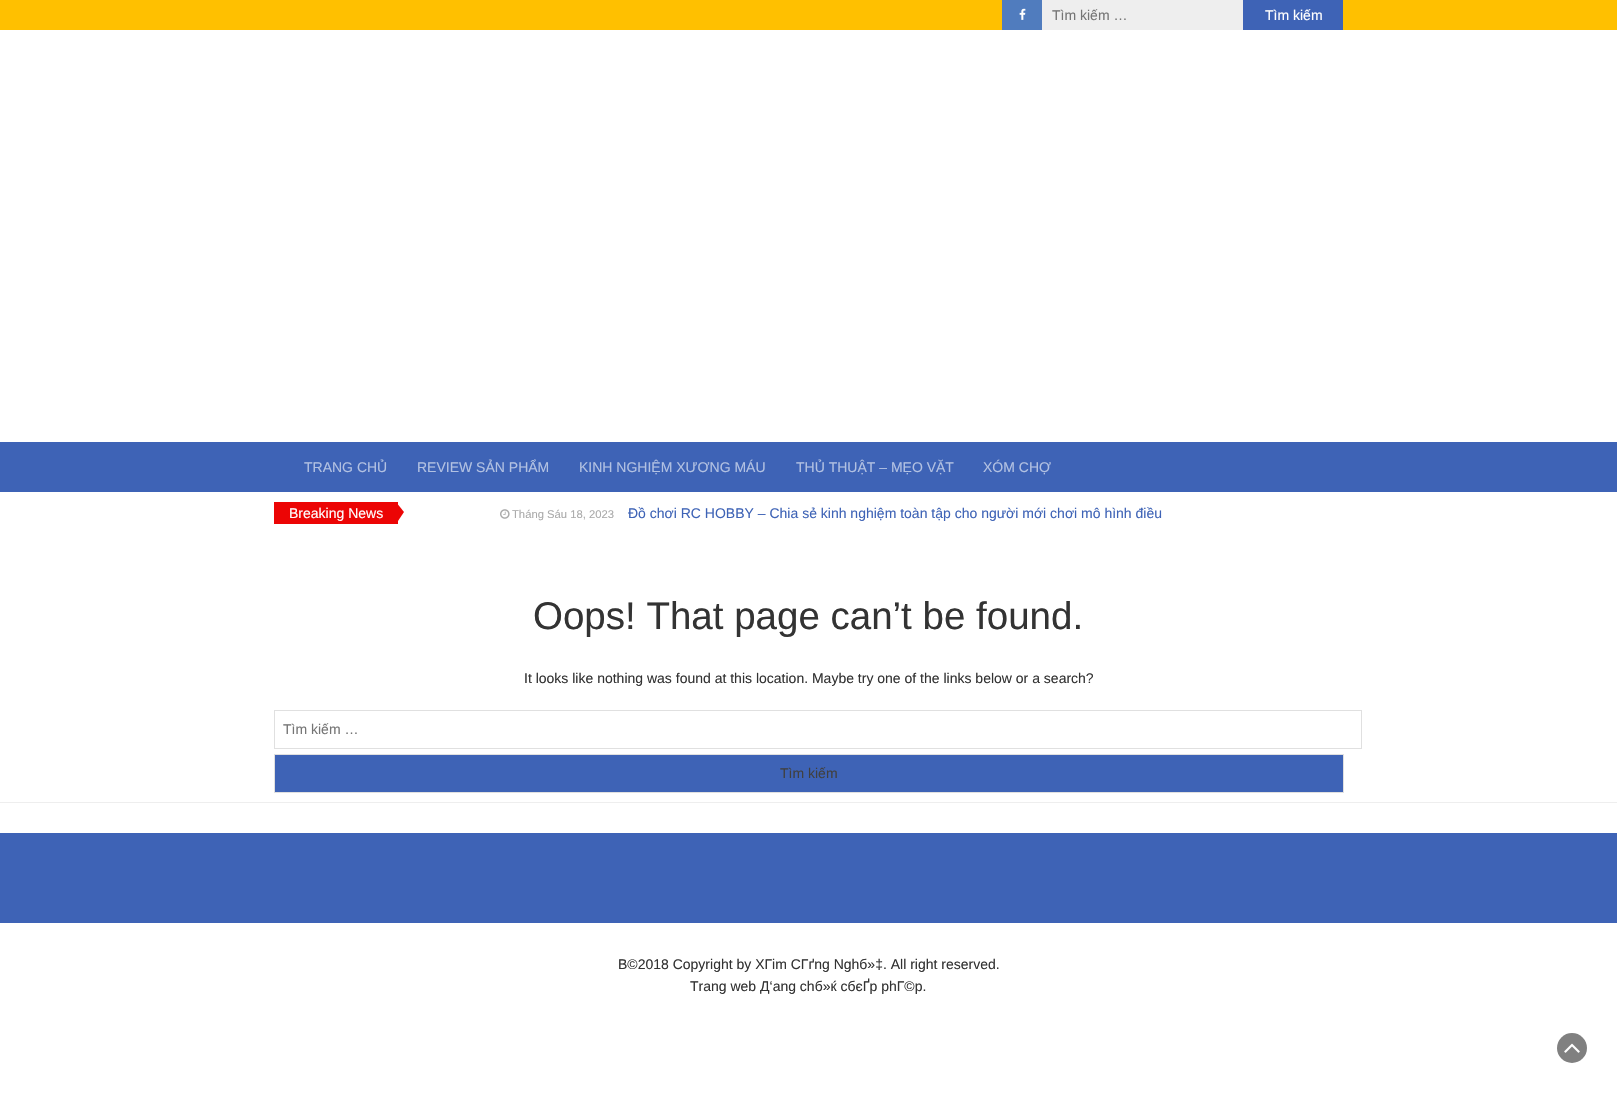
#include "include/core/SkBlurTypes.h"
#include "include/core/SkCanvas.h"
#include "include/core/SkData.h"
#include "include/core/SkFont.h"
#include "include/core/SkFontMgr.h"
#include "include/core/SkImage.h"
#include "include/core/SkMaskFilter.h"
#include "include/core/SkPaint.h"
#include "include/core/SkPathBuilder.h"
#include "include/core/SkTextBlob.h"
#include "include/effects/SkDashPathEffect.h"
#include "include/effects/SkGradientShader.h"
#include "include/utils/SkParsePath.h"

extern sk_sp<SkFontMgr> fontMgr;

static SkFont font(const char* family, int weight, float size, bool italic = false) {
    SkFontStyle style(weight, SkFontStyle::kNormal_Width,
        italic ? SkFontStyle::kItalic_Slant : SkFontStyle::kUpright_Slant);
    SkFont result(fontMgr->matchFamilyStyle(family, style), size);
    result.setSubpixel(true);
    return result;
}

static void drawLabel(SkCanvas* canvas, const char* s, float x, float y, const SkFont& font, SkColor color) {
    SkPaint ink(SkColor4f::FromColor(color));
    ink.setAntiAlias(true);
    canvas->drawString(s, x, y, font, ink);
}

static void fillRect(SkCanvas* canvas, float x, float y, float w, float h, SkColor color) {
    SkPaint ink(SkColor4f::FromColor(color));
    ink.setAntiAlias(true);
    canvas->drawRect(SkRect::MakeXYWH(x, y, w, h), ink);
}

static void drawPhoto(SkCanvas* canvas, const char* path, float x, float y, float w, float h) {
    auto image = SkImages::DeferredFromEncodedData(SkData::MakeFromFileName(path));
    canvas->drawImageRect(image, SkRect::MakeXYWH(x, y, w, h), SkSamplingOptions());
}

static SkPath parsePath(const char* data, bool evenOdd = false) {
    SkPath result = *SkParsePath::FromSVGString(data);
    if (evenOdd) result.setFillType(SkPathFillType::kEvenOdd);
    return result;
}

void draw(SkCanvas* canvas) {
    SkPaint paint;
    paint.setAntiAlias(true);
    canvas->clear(0xFFFFFFFF);
    fillRect(canvas, 0, 0, 1617, 30, 0xFFFFC000);
    fillRect(canvas, 1002, 0, 40, 30, 0xFF507CBE);
    drawPhoto(canvas, "assets/img1.png", 1019, 8, 7, 12);
    fillRect(canvas, 1042, 0, 201, 30, 0xFFEEEEEE);
    SkFont font1 = font("Liberation Sans", 400, 14);
    drawLabel(canvas, "Tìm kiếm …", 1052, 20, font1, 0xFF757575);
    fillRect(canvas, 1243, 0, 100, 30, 0xFF3E63B6);
    drawLabel(canvas, "Tìm kiếm", 1265, 20, font1, 0xFFFFFFFF);
    fillRect(canvas, 0, 442, 1617, 50, 0xFF3E63B6);
    drawLabel(canvas, "TRANG CHỦ", 304, 472, font1, 0xFFB2C1E2);
    drawLabel(canvas, "REVIEW SẢN PHẨM", 417, 472, font1, 0xFFB2C1E2);
    drawLabel(canvas, "KINH NGHIỆM XƯƠNG MÁU", 579, 472, font1, 0xFFB2C1E2);
    drawLabel(canvas, "THỦ THUẬT – MẸO VẶT", 796, 472, font1, 0xFFB2C1E2);
    drawLabel(canvas, "XÓM CHỢ", 983, 472, font1, 0xFFB2C1E2);
    fillRect(canvas, 274, 502, 124, 22, 0xFFEC0505);
    drawLabel(canvas, "Breaking News", 289, 518, font1, 0xFFFFFFFF);
    paint.setColor(0xFFEC0505);
    canvas->drawPath(parsePath("M396 524V502L404 512Z"), paint);
    drawPhoto(canvas, "assets/img2.png", 500, 509, 10, 10);
    SkFont font2 = font("Liberation Sans", 400, 11.25f);
    drawLabel(canvas, "Tháng Sáu 18, 2023", 512, 518, font2, 0xFFAAAAAA);
    drawLabel(canvas, "Đồ chơi RC HOBBY – Chia sẻ kinh nghiệm toàn tập cho người mới chơi mô hình điều", 628, 518, font1, 0xFF3E63B6);
    fillRect(canvas, 0, 802, 1617, 1, 0xFFEEEEEE);
    SkFont font3 = font("Liberation Sans", 400, 38.5f);
    drawLabel(canvas, "Oops! That page can’t be found.", 533, 629, font3, 0xFF333333);
    drawLabel(canvas, "It looks like nothing was found at this location. Maybe try one of the links below or a search?", 524, 683, font1, 0xFF333333);
    paint.setStroke(true);
    paint.setStrokeWidth(1);
    paint.setColor(0xFFE0E0E0);
    canvas->drawRect(SkRect::MakeXYWH(274.5f, 710.5f, 1087, 38), paint);
    drawLabel(canvas, "Tìm kiếm …", 283, 734, font1, 0xFF757575);
    paint.setStroke(false);
    paint.setColor(0xFF3E63B6);
    canvas->drawRect(SkRect::MakeXYWH(274.5f, 754.5f, 1069, 38), paint);
    paint.setStroke(true);
    paint.setColor(0xFFE0E0E0);
    canvas->drawRect(SkRect::MakeXYWH(274.5f, 754.5f, 1069, 38), paint);
    drawLabel(canvas, "Tìm kiếm", 780, 778, font1, 0xFF404040);
    fillRect(canvas, 0, 833, 1617, 90, 0xFF3E63B6);
    drawLabel(canvas, "В©2018 Copyright by XГіm CГґng Nghб»‡. All right reserved.", 618, 969, font1, 0xFF333333);
    drawLabel(canvas, "Trang web Д‘ang chб»ќ cбєҐp phГ©p.", 690, 991, font1, 0xFF333333);
    paint.setStroke(false);
    paint.setColor(0xFF808080);
    canvas->drawCircle(1572, 1048, 15, paint);
    drawPhoto(canvas, "assets/img3.png", 1564, 1043, 16, 10);
}
